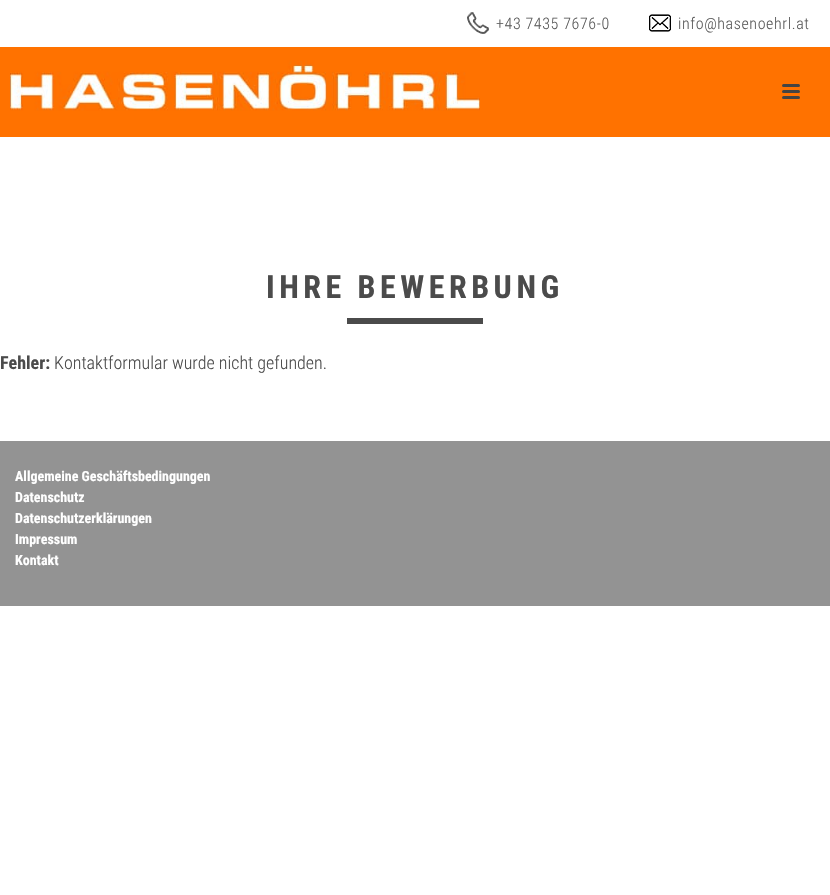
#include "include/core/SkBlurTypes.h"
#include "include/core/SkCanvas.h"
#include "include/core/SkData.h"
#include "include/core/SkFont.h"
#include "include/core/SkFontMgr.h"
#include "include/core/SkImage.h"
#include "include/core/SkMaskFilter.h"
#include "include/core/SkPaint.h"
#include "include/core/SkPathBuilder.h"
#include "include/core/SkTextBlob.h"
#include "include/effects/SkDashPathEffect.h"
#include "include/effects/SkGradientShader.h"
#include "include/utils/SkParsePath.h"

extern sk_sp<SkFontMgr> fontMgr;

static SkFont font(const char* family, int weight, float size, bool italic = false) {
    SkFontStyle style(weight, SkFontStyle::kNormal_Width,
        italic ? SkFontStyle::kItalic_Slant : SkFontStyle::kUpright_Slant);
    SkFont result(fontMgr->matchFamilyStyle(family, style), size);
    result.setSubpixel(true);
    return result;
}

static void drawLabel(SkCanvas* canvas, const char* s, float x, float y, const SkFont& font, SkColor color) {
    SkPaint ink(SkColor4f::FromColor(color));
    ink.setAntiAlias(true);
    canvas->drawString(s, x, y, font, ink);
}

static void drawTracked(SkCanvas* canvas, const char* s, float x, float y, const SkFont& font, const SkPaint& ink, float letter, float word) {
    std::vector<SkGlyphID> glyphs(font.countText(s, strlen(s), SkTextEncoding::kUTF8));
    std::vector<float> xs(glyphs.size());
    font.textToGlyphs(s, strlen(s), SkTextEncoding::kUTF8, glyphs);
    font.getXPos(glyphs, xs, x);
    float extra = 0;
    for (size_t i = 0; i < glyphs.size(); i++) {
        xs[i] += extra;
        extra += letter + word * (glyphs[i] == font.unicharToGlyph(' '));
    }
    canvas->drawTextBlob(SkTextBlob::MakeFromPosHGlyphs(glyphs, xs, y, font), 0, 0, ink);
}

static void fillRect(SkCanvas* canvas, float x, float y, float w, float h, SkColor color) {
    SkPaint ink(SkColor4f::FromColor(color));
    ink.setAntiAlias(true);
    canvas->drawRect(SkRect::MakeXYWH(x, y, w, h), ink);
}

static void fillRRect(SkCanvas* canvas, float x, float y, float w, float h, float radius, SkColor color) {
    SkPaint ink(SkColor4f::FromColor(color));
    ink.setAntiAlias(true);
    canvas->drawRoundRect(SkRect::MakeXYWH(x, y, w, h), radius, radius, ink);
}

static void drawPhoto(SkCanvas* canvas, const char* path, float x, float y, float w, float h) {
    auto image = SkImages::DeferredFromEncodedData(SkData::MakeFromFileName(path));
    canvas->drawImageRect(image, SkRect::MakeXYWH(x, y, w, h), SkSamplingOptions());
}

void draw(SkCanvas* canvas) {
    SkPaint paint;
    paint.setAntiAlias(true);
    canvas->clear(0xFFFFFFFF);
    drawPhoto(canvas, "assets/img1.png", 467, 12, 22, 22);
    SkFont font1 = font("Roboto Condensed", 300, 16);
    paint.setColor(0xFF5B5B5B);
    drawTracked(canvas, "+43 7435 7676-0", 496, 29, font1, paint, 0.6f, 0);
    drawPhoto(canvas, "assets/img2.png", 649, 14, 22, 18);
    drawTracked(canvas, "info@hasenoehrl.at", 678, 29, font1, paint, 0.6f, 0);
    fillRect(canvas, 0, 47, 830, 90, 0xFFFF7200);
    drawPhoto(canvas, "assets/img3.png", 10, 60, 470, 51);
    fillRRect(canvas, 782, 84, 18, 3, 1.5f, 0xFF444444);
    fillRRect(canvas, 782, 90, 18, 3, 1.5f, 0xFF444444);
    fillRRect(canvas, 782, 96, 18, 3, 1.5f, 0xFF444444);
    SkFont font2 = font("Roboto Condensed", 700, 32);
    paint.setColor(0xFF4B4B4B);
    drawTracked(canvas, "IHRE BEWERBUNG", 266, 298, font2, paint, 4.5f, 0);
    fillRect(canvas, 347, 318, 136, 6, 0xFF4B4B4B);
    SkFont font3 = font("Roboto Condensed", 700, 18);
    drawLabel(canvas, "Fehler:", 0, 369, font3, 0xFF4B4B4B);
    SkFont font4 = font("Roboto Condensed", 300, 18);
    drawLabel(canvas, "Kontaktformular wurde nicht gefunden.", 54, 369, font4, 0xFF4B4B4B);
    fillRect(canvas, 0, 441, 830, 165, 0xFF939393);
    SkFont font5 = font("Roboto Condensed", 700, 14);
    drawLabel(canvas, "Allgemeine Geschäftsbedingungen", 15, 481, font5, 0xFFFFFFFF);
    drawLabel(canvas, "Datenschutz", 15, 502, font5, 0xFFFFFFFF);
    drawLabel(canvas, "Datenschutzerklärungen", 15, 523, font5, 0xFFFFFFFF);
    drawLabel(canvas, "Impressum", 15, 544, font5, 0xFFFFFFFF);
    drawLabel(canvas, "Kontakt", 15, 565, font5, 0xFFFFFFFF);
}
